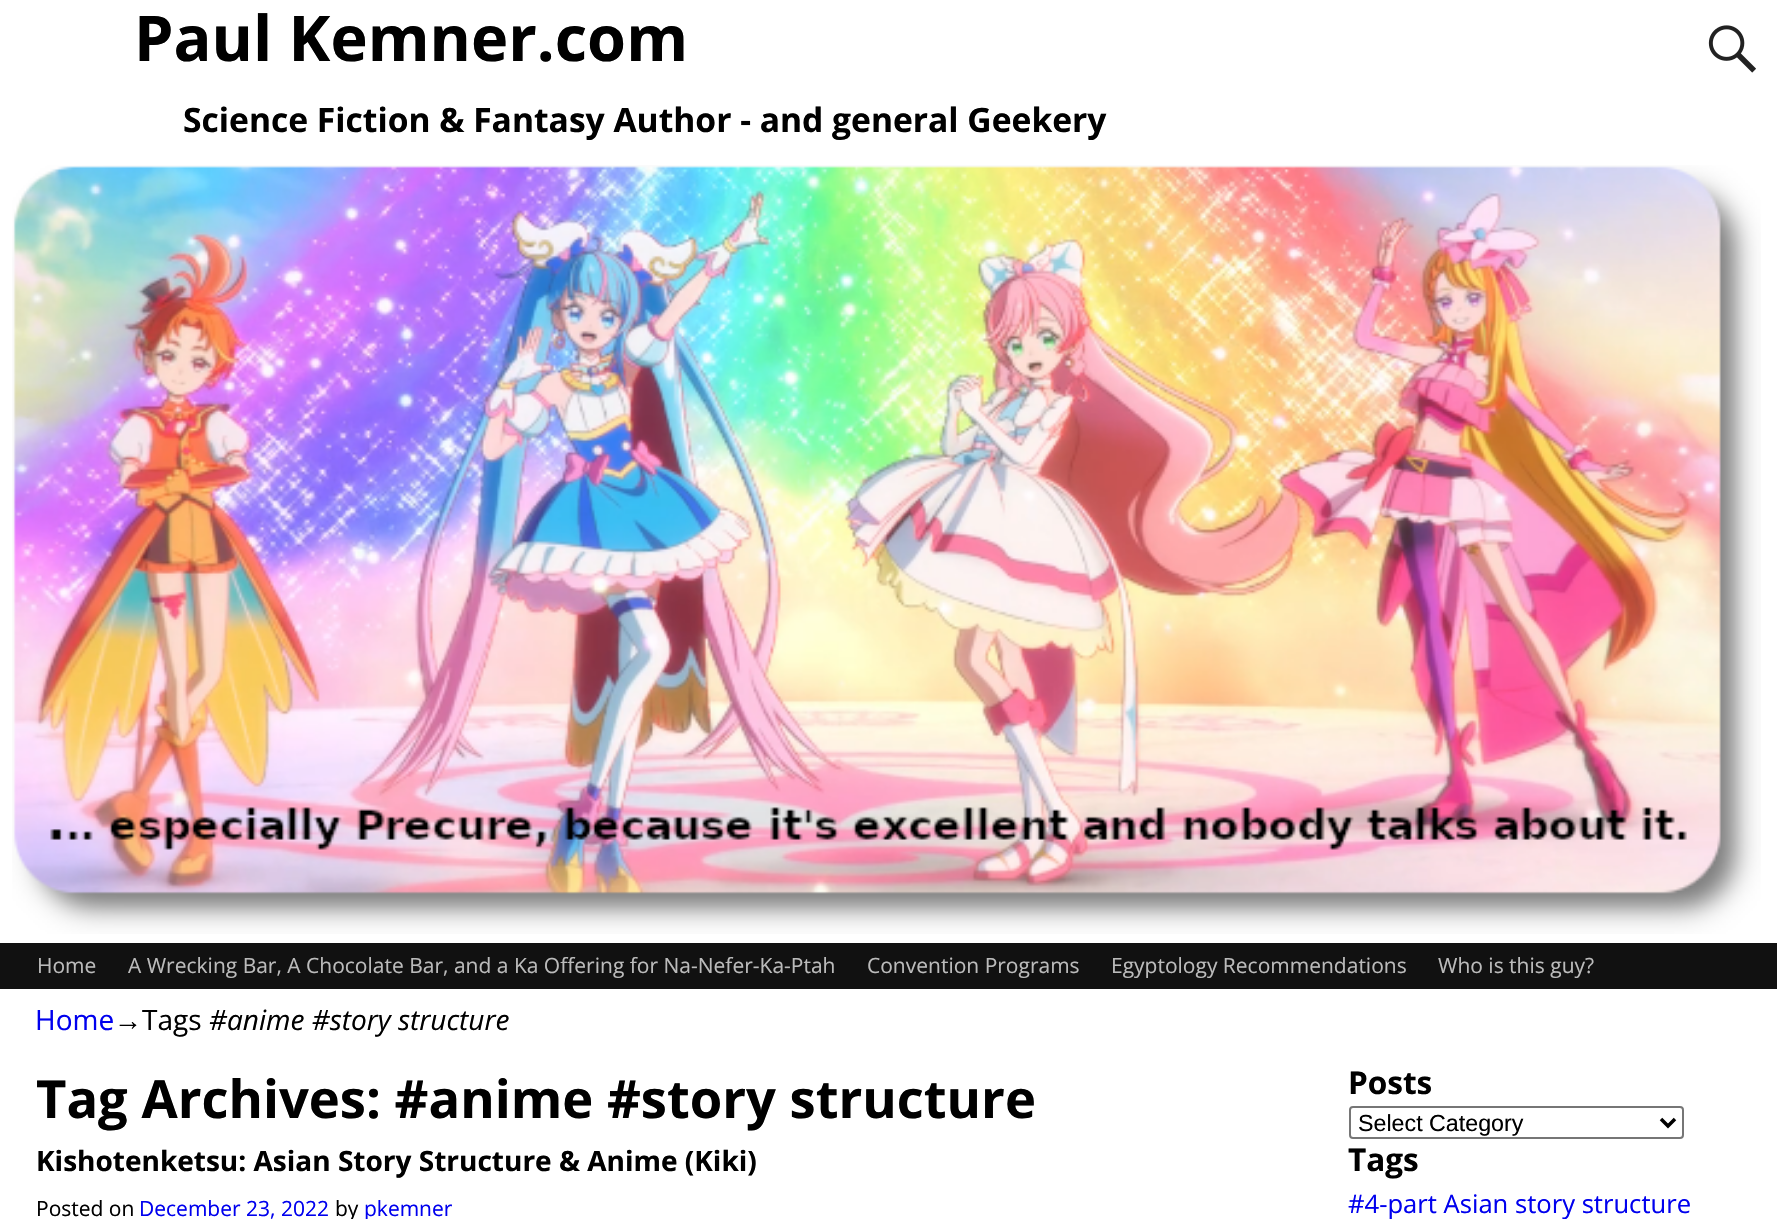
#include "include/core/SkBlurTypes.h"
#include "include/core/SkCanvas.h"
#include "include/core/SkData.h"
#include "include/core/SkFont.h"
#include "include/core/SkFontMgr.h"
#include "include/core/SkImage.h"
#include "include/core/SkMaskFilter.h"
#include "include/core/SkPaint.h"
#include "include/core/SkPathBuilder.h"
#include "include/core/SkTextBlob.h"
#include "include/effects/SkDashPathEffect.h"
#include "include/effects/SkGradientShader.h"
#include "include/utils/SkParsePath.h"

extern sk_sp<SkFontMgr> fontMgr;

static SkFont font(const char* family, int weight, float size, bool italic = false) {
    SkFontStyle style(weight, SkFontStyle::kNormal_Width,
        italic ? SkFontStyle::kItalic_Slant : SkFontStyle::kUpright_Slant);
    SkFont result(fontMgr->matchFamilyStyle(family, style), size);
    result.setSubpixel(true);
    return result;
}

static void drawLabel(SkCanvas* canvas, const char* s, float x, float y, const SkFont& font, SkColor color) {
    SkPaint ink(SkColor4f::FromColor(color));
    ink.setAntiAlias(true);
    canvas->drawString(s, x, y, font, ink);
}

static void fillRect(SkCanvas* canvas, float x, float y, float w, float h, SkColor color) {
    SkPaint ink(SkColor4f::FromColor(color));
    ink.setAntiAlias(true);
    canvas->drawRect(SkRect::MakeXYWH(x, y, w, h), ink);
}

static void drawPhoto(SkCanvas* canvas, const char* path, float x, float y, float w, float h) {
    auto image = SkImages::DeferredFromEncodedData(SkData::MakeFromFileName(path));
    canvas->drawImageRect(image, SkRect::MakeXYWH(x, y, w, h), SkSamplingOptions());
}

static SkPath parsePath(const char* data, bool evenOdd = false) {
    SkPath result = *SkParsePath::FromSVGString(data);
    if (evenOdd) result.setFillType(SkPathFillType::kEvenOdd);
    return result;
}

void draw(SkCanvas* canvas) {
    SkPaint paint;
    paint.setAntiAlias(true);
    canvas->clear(0xFFFFFFFF);
    SkFont font1 = font("Open Sans", 700, 63);
    drawLabel(canvas, "Paul Kemner.com", 134, 61, font1, 0xFF000000);
    drawPhoto(canvas, "assets/img1.png", 1708, 25, 48, 48);
    SkFont font2 = font("Open Sans", 700, 33.6f);
    drawLabel(canvas, "Science Fiction & Fantasy Author - and general Geekery", 183, 132, font2, 0xFF000000);
    drawPhoto(canvas, "assets/img2.png", 12, 165, 1749, 769);
    fillRect(canvas, 0, 943, 1777, 46, 0xFF111111);
    SkFont font3 = font("Open Sans", 400, 21);
    drawLabel(canvas, "Home", 37, 973, font3, 0xFFBBBBBB);
    drawLabel(canvas, "A Wrecking Bar, A Chocolate Bar, and a Ka Offering for Na-Nefer-Ka-Ptah", 128, 973, font3, 0xFFBBBBBB);
    drawLabel(canvas, "Convention Programs", 867, 973, font3, 0xFFBBBBBB);
    drawLabel(canvas, "Egyptology Recommendations", 1111, 973, font3, 0xFFBBBBBB);
    drawLabel(canvas, "Who is this guy?", 1438, 973, font3, 0xFFBBBBBB);
    SkFont font4 = font("Open Sans", 400, 28);
    drawLabel(canvas, "Home", 35, 1030, font4, 0xFF0000EE);
    SkFont font5 = font("Liberation Sans", 400, 28);
    drawLabel(canvas, "→", 114, 1030, font5, 0xFF000000);
    drawLabel(canvas, "Tags", 142, 1030, font4, 0xFF000000);
    SkFont font6 = font("Open Sans", 400, 28, true);
    drawLabel(canvas, "#anime #story structure", 209, 1030, font6, 0xFF000000);
    SkFont font7 = font("Open Sans", 700, 52.5f);
    drawLabel(canvas, "Tag Archives: #anime #story structure", 36, 1118, font7, 0xFF000000);
    SkFont font8 = font("Open Sans", 700, 28);
    drawLabel(canvas, "Kishotenketsu: Asian Story Structure & Anime (Kiki)", 36, 1171, font8, 0xFF000000);
    drawLabel(canvas, "Posted on", 36, 1216, font3, 0xFF000000);
    drawLabel(canvas, "December 23, 2022", 139, 1216, font3, 0xFF0000EE);
    drawLabel(canvas, "by", 335, 1216, font3, 0xFF000000);
    drawLabel(canvas, "pkemner", 364, 1216, font3, 0xFF0000EE);
    SkFont font9 = font("Open Sans", 700, 31.5f);
    drawLabel(canvas, "Posts", 1348, 1094, font9, 0xFF000000);
    paint.setStroke(true);
    paint.setStrokeWidth(2);
    paint.setColor(0xFF767676);
    canvas->drawRoundRect(SkRect::MakeXYWH(1350, 1107, 333, 31), 3, 3, paint);
    paint.setStrokeWidth(3.5f);
    paint.setColor(0xFF000000);
    canvas->drawPath(parsePath("M1661 1119L1668 1126L1675 1119"), paint);
    SkFont font10 = font("Liberation Sans", 400, 23.25f);
    drawLabel(canvas, "Select Category", 1358, 1131, font10, 0xFF000000);
    drawLabel(canvas, "Tags", 1348, 1171, font9, 0xFF000000);
    SkFont font11 = font("Open Sans", 400, 25.6f);
    drawLabel(canvas, "#4-part Asian story structure", 1348, 1213, font11, 0xFF0000EE);
}
